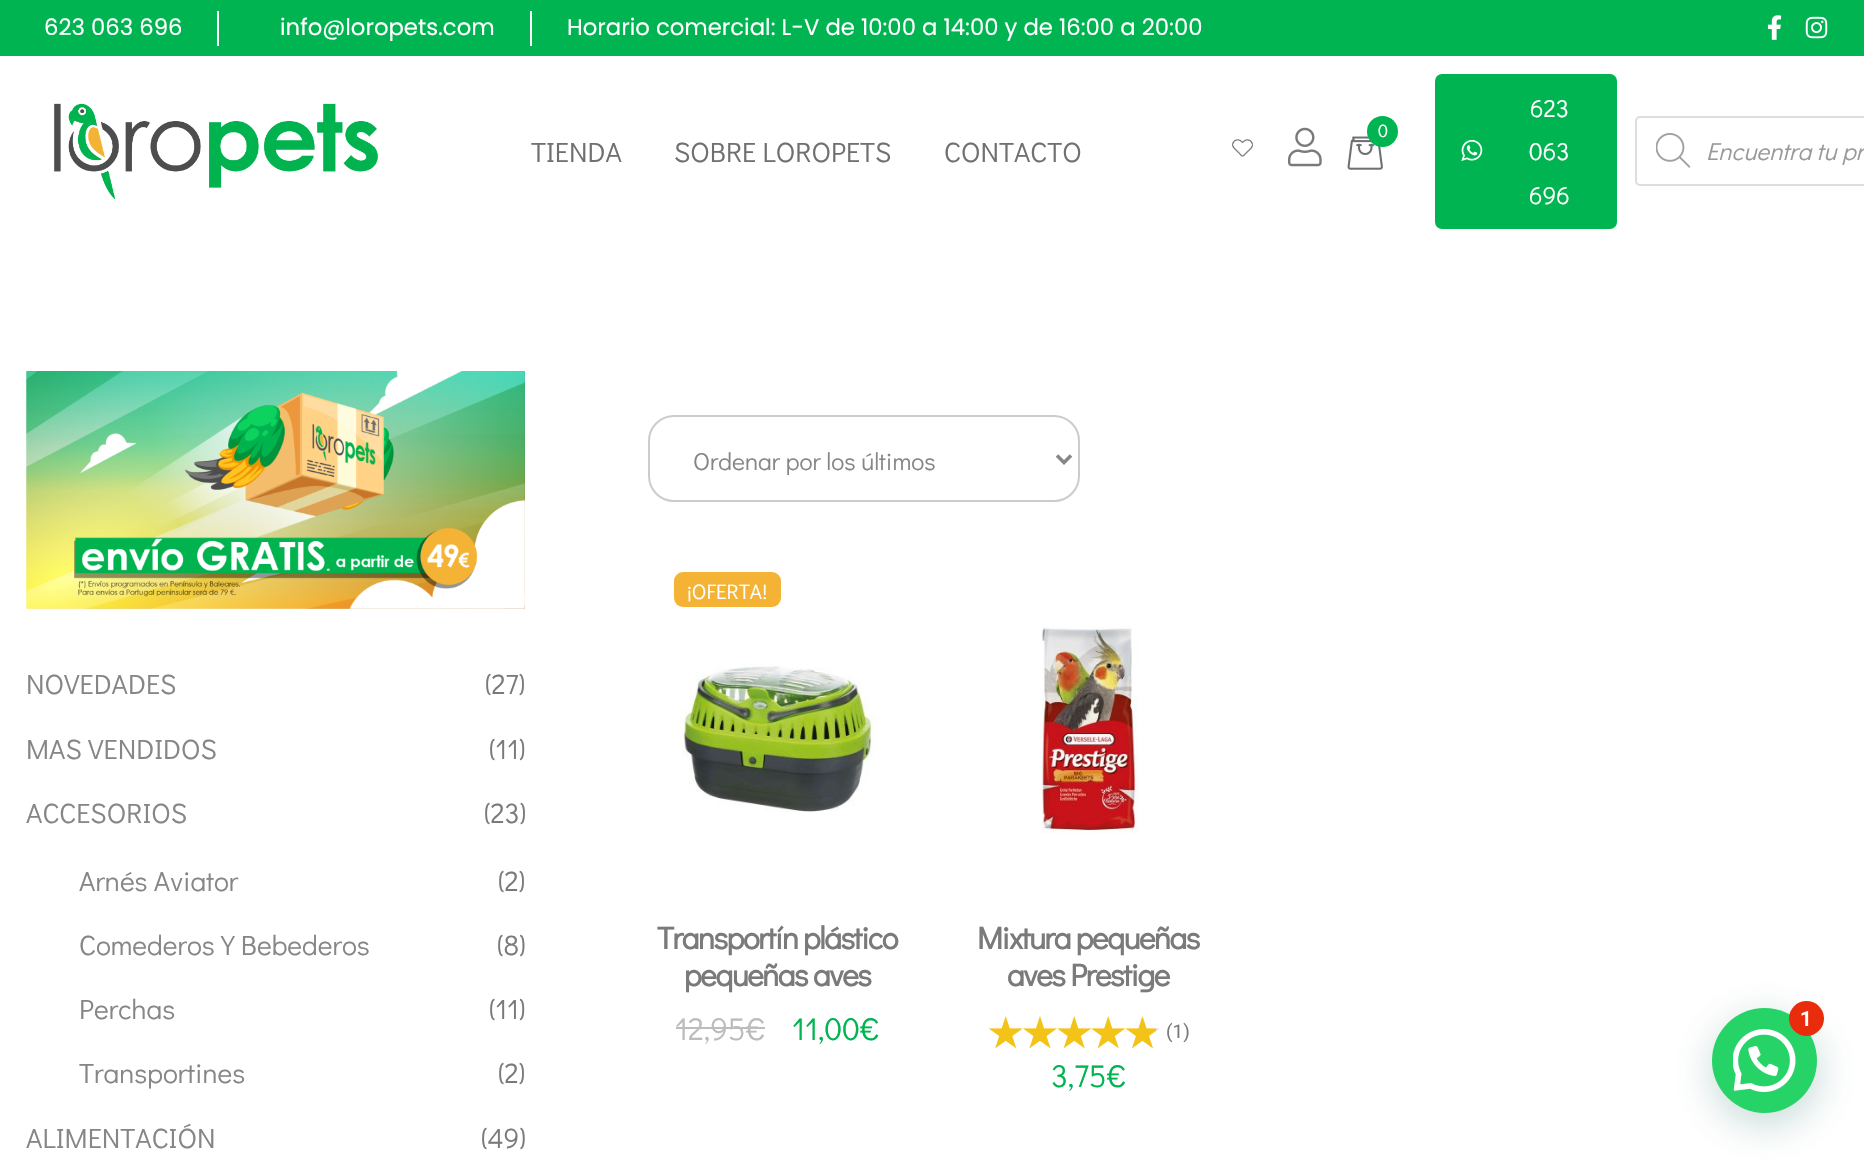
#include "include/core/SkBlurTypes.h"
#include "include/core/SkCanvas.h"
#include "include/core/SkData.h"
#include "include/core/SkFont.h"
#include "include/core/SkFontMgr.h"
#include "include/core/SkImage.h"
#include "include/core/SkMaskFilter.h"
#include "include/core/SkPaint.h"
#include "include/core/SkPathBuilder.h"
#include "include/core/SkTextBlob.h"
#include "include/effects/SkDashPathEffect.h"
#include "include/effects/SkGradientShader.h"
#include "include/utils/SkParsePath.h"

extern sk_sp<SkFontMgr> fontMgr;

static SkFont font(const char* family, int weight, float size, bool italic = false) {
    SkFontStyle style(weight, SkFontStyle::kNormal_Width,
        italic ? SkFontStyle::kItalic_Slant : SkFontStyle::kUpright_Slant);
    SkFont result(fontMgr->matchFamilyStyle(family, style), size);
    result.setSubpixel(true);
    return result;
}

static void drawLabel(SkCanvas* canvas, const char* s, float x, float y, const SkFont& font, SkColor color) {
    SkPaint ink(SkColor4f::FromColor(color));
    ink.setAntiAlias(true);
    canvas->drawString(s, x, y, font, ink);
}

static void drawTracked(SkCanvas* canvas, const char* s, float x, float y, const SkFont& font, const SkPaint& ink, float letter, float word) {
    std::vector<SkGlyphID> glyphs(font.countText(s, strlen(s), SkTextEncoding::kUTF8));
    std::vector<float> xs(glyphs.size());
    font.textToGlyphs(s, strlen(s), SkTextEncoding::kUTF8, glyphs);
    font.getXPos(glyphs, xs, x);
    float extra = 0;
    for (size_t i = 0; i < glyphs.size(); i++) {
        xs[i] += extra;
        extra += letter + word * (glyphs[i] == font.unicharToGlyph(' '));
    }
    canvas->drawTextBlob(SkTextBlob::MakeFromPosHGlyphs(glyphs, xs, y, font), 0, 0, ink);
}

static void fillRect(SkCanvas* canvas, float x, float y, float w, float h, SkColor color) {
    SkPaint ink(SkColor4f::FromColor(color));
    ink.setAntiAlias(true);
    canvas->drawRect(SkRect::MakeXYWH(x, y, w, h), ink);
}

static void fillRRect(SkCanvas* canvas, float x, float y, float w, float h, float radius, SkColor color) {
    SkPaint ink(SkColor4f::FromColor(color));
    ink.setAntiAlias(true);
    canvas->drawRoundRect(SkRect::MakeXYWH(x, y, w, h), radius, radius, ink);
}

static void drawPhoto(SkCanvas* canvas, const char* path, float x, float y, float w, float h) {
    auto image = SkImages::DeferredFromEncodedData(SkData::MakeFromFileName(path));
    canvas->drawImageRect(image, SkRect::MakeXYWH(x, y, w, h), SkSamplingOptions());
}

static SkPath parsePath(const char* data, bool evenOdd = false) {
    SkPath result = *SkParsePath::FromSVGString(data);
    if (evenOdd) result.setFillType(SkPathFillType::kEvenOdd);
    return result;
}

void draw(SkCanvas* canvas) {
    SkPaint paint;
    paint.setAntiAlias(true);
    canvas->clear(0xFFFFFFFF);
    fillRect(canvas, 0, 0, 1864, 56, 0xFF00B451);
    SkFont font1 = font("Poppins", 400, 22.75f);
    drawLabel(canvas, "623 063 696", 44, 35, font1, 0xFFFFFFFF);
    fillRect(canvas, 217, 11, 2, 35, 0xFFFFFFFF);
    drawLabel(canvas, "info@loropets.com", 280, 35, font1, 0xFFFFFFFF);
    fillRect(canvas, 530, 11, 2, 35, 0xFFFFFFFF);
    drawLabel(canvas, "Horario comercial: L-V de 10:00 a 14:00 y de 16:00 a 20:00", 567, 35, font1, 0xFFFFFFFF);
    drawPhoto(canvas, "assets/img1.png", 1767, 15, 15, 25);
    drawPhoto(canvas, "assets/img2.png", 1805, 16, 23, 23);
    drawPhoto(canvas, "assets/img3.png", 54, 103, 324, 96);
    drawPhoto(canvas, "assets/img4.png", 1232, 139, 21, 18);
    drawPhoto(canvas, "assets/img5.png", 1288, 127, 34, 40);
    drawPhoto(canvas, "assets/img6.png", 1347, 136, 36, 34);
    paint.setColor(0xFF00B451);
    canvas->drawCircle(1382.5f, 131.5f, 15.5f, paint);
    SkFont font2 = font("Didact Gothic", 400, 18);
    drawLabel(canvas, "0", 1378, 137, font2, 0xFFFFFFFF);
    fillRRect(canvas, 1435, 74, 182, 155, 7, 0xFF00B451);
    drawPhoto(canvas, "assets/img7.png", 1461, 139, 22, 22);
    SkFont font3 = font("Didact Gothic", 400, 24.5f);
    drawLabel(canvas, "623", 1530, 117, font3, 0xFFFFFFFF);
    drawLabel(canvas, "063", 1529, 160, font3, 0xFFFFFFFF);
    drawLabel(canvas, "696", 1529, 204, font3, 0xFFFFFFFF);
    SkFont font4 = font("Didact Gothic", 400, 28);
    drawLabel(canvas, "TIENDA", 531, 162, font4, 0xFF6F7072);
    drawLabel(canvas, "SOBRE LOROPETS", 674, 162, font4, 0xFF6F7072);
    drawLabel(canvas, "CONTACTO", 944, 162, font4, 0xFF6F7072);
    paint.setStroke(true);
    paint.setStrokeWidth(2);
    paint.setColor(0xFFDDDDDD);
    canvas->drawRoundRect(SkRect::MakeXYWH(1636, 117, 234, 68), 4, 4, paint);
    drawPhoto(canvas, "assets/img8.png", 1656, 133, 35, 35);
    SkFont font5 = font("Didact Gothic", 400, 24.5f, true);
    drawLabel(canvas, "Encuentra tu pr", 1706, 160, font5, 0xFF999999);
    drawPhoto(canvas, "assets/img9.png", 26, 371, 499, 238);
    drawLabel(canvas, "NOVEDADES", 26, 694, font4, 0xFF858687);
    drawLabel(canvas, "(27)", 485, 694, font4, 0xFF7A7A7A);
    drawLabel(canvas, "MAS VENDIDOS", 26, 759, font4, 0xFF858687);
    drawLabel(canvas, "(11)", 489, 759, font4, 0xFF7A7A7A);
    drawLabel(canvas, "ACCESORIOS", 26, 823, font4, 0xFF858687);
    drawLabel(canvas, "(23)", 484, 823, font4, 0xFF7A7A7A);
    drawLabel(canvas, "Arnés Aviator", 79, 891, font4, 0xFF858687);
    drawLabel(canvas, "(2)", 498, 891, font4, 0xFF7A7A7A);
    drawLabel(canvas, "Comederos Y Bebederos", 79, 955, font4, 0xFF858687);
    drawLabel(canvas, "(8)", 497, 955, font4, 0xFF7A7A7A);
    drawLabel(canvas, "Perchas", 79, 1019, font4, 0xFF858687);
    drawLabel(canvas, "(11)", 489, 1019, font4, 0xFF7A7A7A);
    drawLabel(canvas, "Transportines", 79, 1083, font4, 0xFF858687);
    drawLabel(canvas, "(2)", 498, 1083, font4, 0xFF7A7A7A);
    drawLabel(canvas, "ALIMENTACIÓN", 26, 1148, font4, 0xFF858687);
    drawLabel(canvas, "(49)", 481, 1148, font4, 0xFF7A7A7A);
    paint.setColor(0xFFCCCCCC);
    canvas->drawRoundRect(SkRect::MakeXYWH(649, 416, 430, 85), 25, 25, paint);
    paint.setStrokeWidth(3.5f);
    paint.setColor(0xFF858687);
    canvas->drawPath(parsePath("M1057 455.5L1064 462.5L1071 455.5"), paint);
    drawLabel(canvas, "Ordenar por los últimos", 693, 470, font3, 0xFF858687);
    fillRRect(canvas, 674, 572, 107, 35, 9, 0xFFF5B335);
    SkFont font6 = font("Didact Gothic", 400, 21);
    drawLabel(canvas, "¡OFERTA!", 687, 599, font6, 0xFFFFFFFF);
    drawPhoto(canvas, "assets/img10.png", 675, 664, 205, 148);
    SkFont font7 = font("Didact Gothic", 700, 31.5f);
    paint.setStroke(false);
    paint.setColor(0xFF7A7A7A);
    drawTracked(canvas, "Transportín plástico", 657, 949, font7, paint, -1.4f, 0);
    drawTracked(canvas, "pequeñas aves", 684, 986, font7, paint, -1.4f, 0);
    SkFont font8 = font("Didact Gothic", 400, 31.5f);
    drawLabel(canvas, "12,95€", 675, 1040, font8, 0xFFBCBCBC);
    fillRect(canvas, 676, 1027, 89, 2, 0xFFBCBCBC);
    drawLabel(canvas, "11,00€", 792, 1040, font8, 0xFF00B451);
    drawPhoto(canvas, "assets/img11.png", 1041, 626, 98, 208);
    drawTracked(canvas, "Mixtura pequeñas", 977, 949, font7, paint, -1.4f, 0);
    drawTracked(canvas, "aves Prestige", 1007, 986, font7, paint, -1.4f, 0);
    SkFont font9 = font("DejaVu Sans", 400, 44);
    {
        const SkColor colors[] = {0xFFF4C318, 0xFFDEDEDE};
        const float stops[] = {1, 1};
        const SkPoint ends[] = {{986, 1033}, {1156, 1033}};
        paint.setShader(SkGradientShader::MakeLinear(ends, colors, stops, 2, SkTileMode::kClamp));
        paint.setAlpha(255);
    }
    drawTracked(canvas, "★★★★★", 986, 1048, font9, paint, -5.25f, 0);
    SkFont font10 = font("Roboto", 400, 19);
    drawLabel(canvas, "(1)", 1166, 1038, font10, 0xFF7A7A7A);
    drawLabel(canvas, "3,75€", 1051, 1087, font8, 0xFF00B451);
    paint.setShader(nullptr);
    paint.setColor(0x3D075E54);
    paint.setMaskFilter(SkMaskFilter::MakeBlur(kNormal_SkBlurStyle, 21));
    canvas->drawRoundRect(SkRect::MakeXYWH(1713, 1019, 105, 105), 52.5f, 52.5f, paint);
    paint.setMaskFilter(nullptr);
    paint.setColor(0xFF25D366);
    canvas->drawCircle(1764.5f, 1060.5f, 52.5f, paint);
    drawPhoto(canvas, "assets/img12.png", 1733, 1029, 63, 63);
    paint.setColor(0xFFE82C0C);
    canvas->drawCircle(1806.5f, 1018.5f, 17.5f, paint);
    SkFont font11 = font("Roboto", 600, 21);
    drawLabel(canvas, "1", 1800, 1026, font11, 0xFFFFFFFF);
}
